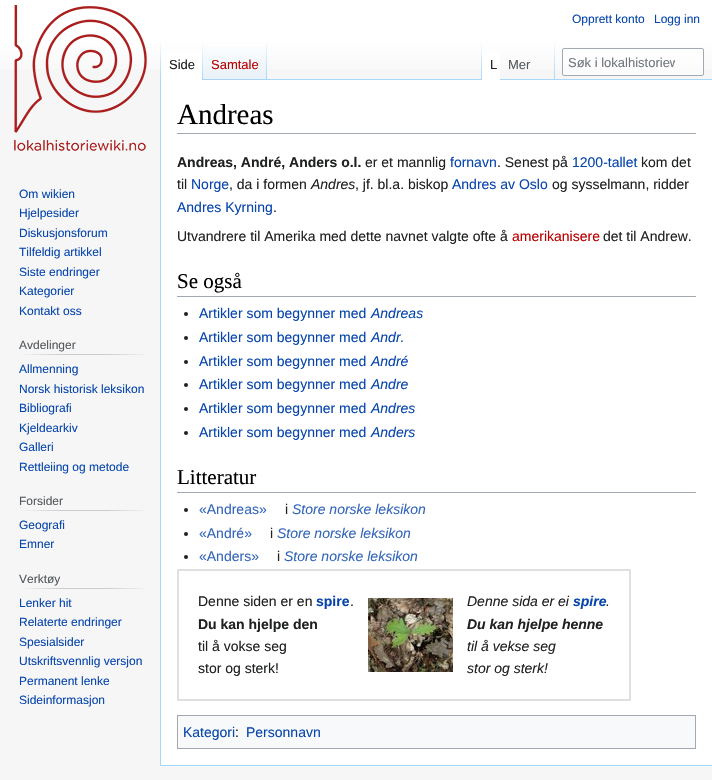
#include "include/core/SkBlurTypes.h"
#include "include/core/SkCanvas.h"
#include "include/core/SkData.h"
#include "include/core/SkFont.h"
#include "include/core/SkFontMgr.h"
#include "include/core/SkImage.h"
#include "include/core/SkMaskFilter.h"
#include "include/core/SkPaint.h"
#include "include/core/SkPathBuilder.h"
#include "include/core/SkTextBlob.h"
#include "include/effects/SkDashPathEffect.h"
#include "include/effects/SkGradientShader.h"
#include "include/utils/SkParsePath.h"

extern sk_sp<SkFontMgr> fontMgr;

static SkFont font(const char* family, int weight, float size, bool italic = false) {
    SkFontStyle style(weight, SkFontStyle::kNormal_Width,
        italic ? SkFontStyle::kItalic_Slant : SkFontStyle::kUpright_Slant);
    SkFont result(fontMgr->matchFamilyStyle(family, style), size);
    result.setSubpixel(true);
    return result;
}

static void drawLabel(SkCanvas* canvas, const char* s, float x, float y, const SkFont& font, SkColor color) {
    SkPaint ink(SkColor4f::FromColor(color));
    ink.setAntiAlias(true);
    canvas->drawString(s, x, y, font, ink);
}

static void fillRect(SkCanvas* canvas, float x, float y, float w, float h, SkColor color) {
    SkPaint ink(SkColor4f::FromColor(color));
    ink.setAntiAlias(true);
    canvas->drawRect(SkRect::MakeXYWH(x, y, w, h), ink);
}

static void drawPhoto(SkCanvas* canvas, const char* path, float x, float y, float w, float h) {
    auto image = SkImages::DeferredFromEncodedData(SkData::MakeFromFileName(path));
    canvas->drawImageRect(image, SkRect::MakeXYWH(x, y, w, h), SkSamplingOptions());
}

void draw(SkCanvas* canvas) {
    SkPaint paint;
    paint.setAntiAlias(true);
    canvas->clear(0xFFF6F6F6);
    {
        const SkColor colors[] = {0xFFFFFFFF, 0xFFF6F6F6};
        const float stops[] = {0.5f, 1};
        const SkPoint ends[] = {{356, 0}, {356, 80}};
        paint.setShader(SkGradientShader::MakeLinear(ends, colors, stops, 2, SkTileMode::kClamp));
        paint.setAlpha(255);
    }
    canvas->drawRect(SkRect::MakeXYWH(0, 0, 712, 69), paint);
    SkFont font1 = font("Liberation Sans", 400, 12);
    drawLabel(canvas, "Opprett konto", 572, 23, font1, 0xFF0645AD);
    drawLabel(canvas, "Logg inn", 654, 23, font1, 0xFF0645AD);
    fillRect(canvas, 160, 765, 552, 1, 0xFFA7D7F9);
    fillRect(canvas, 160, 79, 1, 687, 0xFFA7D7F9);
    {
        const SkColor colors[] = {0x00A7D7F9, 0xFFA7D7F9};
        const float stops[] = {0, 1};
        const SkPoint ends[] = {{161, 40}, {161, 80}};
        paint.setShader(SkGradientShader::MakeLinear(ends, colors, stops, 2, SkTileMode::kClamp));
        paint.setAlpha(255);
    }
    canvas->drawRect(SkRect::MakeXYWH(160, 40, 1, 40), paint);
    fillRect(canvas, 161, 51, 41, 29, 0xFFFFFFFF);
    {
        const SkColor colors[] = {0xFFFFFFFF, 0xFFA7D7F9};
        const float stops[] = {0, 1};
        const SkPoint ends[] = {{203, 40}, {203, 80}};
        paint.setShader(SkGradientShader::MakeLinear(ends, colors, stops, 2, SkTileMode::kClamp));
        paint.setAlpha(255);
    }
    canvas->drawRect(SkRect::MakeXYWH(202, 40, 1, 40), paint);
    SkFont font2 = font("Liberation Sans", 400, 13);
    drawLabel(canvas, "Side", 169, 69, font2, 0xFF202122);
    {
        const SkColor colors[] = {0xFF77C1F6, 0xFFE8F2F8, 0xFFFFFFFF};
        const float stops[] = {0, 0.03f, 1};
        const SkPoint ends[] = {{235, 80}, {235, 40}};
        paint.setShader(SkGradientShader::MakeLinear(ends, colors, stops, 3, SkTileMode::kClamp));
        paint.setAlpha(255);
    }
    canvas->drawRect(SkRect::MakeXYWH(203, 46, 64, 34), paint);
    {
        const SkColor colors[] = {0x00A7D7F9, 0xFFA7D7F9};
        const float stops[] = {0, 1};
        const SkPoint ends[] = {{267, 40}, {267, 80}};
        paint.setShader(SkGradientShader::MakeLinear(ends, colors, stops, 2, SkTileMode::kClamp));
        paint.setAlpha(255);
    }
    canvas->drawRect(SkRect::MakeXYWH(266, 40, 1, 40), paint);
    drawLabel(canvas, "Samtale", 211, 69, font2, 0xFFBA0000);
    fillRect(canvas, 267, 79, 445, 1, 0xFFA7D7F9);
    {
        const SkColor colors[] = {0x00A7D7F9, 0xFFA7D7F9};
        const float stops[] = {0, 1};
        const SkPoint ends[] = {{482, 40}, {482, 80}};
        paint.setShader(SkGradientShader::MakeLinear(ends, colors, stops, 2, SkTileMode::kClamp));
        paint.setAlpha(255);
    }
    canvas->drawRect(SkRect::MakeXYWH(481, 40, 1, 40), paint);
    fillRect(canvas, 482, 51, 18, 29, 0xFFFFFFFF);
    drawLabel(canvas, "L", 490, 69, font2, 0xFF202122);
    {
        const SkColor colors[] = {0x00A7D7F9, 0xFFA7D7F9};
        const float stops[] = {0, 1};
        const SkPoint ends[] = {{555, 40}, {555, 80}};
        paint.setShader(SkGradientShader::MakeLinear(ends, colors, stops, 2, SkTileMode::kClamp));
        paint.setAlpha(255);
    }
    canvas->drawRect(SkRect::MakeXYWH(554, 40, 1, 40), paint);
    drawLabel(canvas, "Mer", 508, 69, font2, 0xFF54595D);
    paint.setShader(nullptr);
    paint.setColor(0x80FFFFFF);
    canvas->drawRoundRect(SkRect::MakeXYWH(562.5f, 48.5f, 141, 27), 1.5f, 1.5f, paint);
    paint.setStroke(true);
    paint.setStrokeWidth(1);
    paint.setColor(0xFFA2A9B1);
    canvas->drawRoundRect(SkRect::MakeXYWH(562.5f, 48.5f, 141, 27), 1.5f, 1.5f, paint);
    canvas->save();
    canvas->clipRect(SkRect::MakeXYWH(568, 55, 107, 15));
    drawLabel(canvas, "Søk i lokalhistoriew", 568, 67, font2, 0xFF72777D);
    canvas->restore();
    drawPhoto(canvas, "assets/img1.png", 14, 5, 133, 146);
    drawLabel(canvas, "Om wikien", 19, 198, font1, 0xFF0645AD);
    drawLabel(canvas, "Hjelpesider", 19, 217, font1, 0xFF0645AD);
    drawLabel(canvas, "Diskusjonsforum", 19, 237, font1, 0xFF0645AD);
    drawLabel(canvas, "Tilfeldig artikkel", 19, 256, font1, 0xFF0645AD);
    drawLabel(canvas, "Siste endringer", 19, 276, font1, 0xFF0645AD);
    drawLabel(canvas, "Kategorier", 19, 295, font1, 0xFF0645AD);
    drawLabel(canvas, "Kontakt oss", 19, 315, font1, 0xFF0645AD);
    paint.setStroke(false);
    {
        const SkColor colors[] = {0xFFF6F6F6, 0xFFC8CCD1, 0xFFC8CCD1, 0xFFF6F6F6};
        const float stops[] = {0, 0.33f, 0.66f, 1};
        const SkPoint ends[] = {{19, 355}, {150, 355}};
        paint.setShader(SkGradientShader::MakeLinear(ends, colors, stops, 4, SkTileMode::kClamp));
        paint.setAlpha(255);
    }
    canvas->drawRect(SkRect::MakeXYWH(19, 354, 131, 1), paint);
    drawLabel(canvas, "Avdelinger", 19, 349, font1, 0xFF54595D);
    drawLabel(canvas, "Allmenning", 19, 373, font1, 0xFF0645AD);
    drawLabel(canvas, "Norsk historisk leksikon", 19, 393, font1, 0xFF0645AD);
    drawLabel(canvas, "Bibliografi", 19, 412, font1, 0xFF0645AD);
    drawLabel(canvas, "Kjeldearkiv", 19, 432, font1, 0xFF0645AD);
    drawLabel(canvas, "Galleri", 19, 451, font1, 0xFF0645AD);
    drawLabel(canvas, "Rettleiing og metode", 19, 471, font1, 0xFF0645AD);
    {
        const SkColor colors[] = {0xFFF6F6F6, 0xFFC8CCD1, 0xFFC8CCD1, 0xFFF6F6F6};
        const float stops[] = {0, 0.33f, 0.66f, 1};
        const SkPoint ends[] = {{19, 511}, {150, 511}};
        paint.setShader(SkGradientShader::MakeLinear(ends, colors, stops, 4, SkTileMode::kClamp));
        paint.setAlpha(255);
    }
    canvas->drawRect(SkRect::MakeXYWH(19, 510, 131, 1), paint);
    drawLabel(canvas, "Forsider", 19, 505, font1, 0xFF54595D);
    drawLabel(canvas, "Geografi", 19, 529, font1, 0xFF0645AD);
    drawLabel(canvas, "Emner", 19, 548, font1, 0xFF0645AD);
    {
        const SkColor colors[] = {0xFFF6F6F6, 0xFFC8CCD1, 0xFFC8CCD1, 0xFFF6F6F6};
        const float stops[] = {0, 0.33f, 0.66f, 1};
        const SkPoint ends[] = {{19, 589}, {150, 589}};
        paint.setShader(SkGradientShader::MakeLinear(ends, colors, stops, 4, SkTileMode::kClamp));
        paint.setAlpha(255);
    }
    canvas->drawRect(SkRect::MakeXYWH(19, 588, 131, 1), paint);
    drawLabel(canvas, "Verktøy", 19, 583, font1, 0xFF54595D);
    drawLabel(canvas, "Lenker hit", 19, 607, font1, 0xFF0645AD);
    drawLabel(canvas, "Relaterte endringer", 19, 626, font1, 0xFF0645AD);
    drawLabel(canvas, "Spesialsider", 19, 646, font1, 0xFF0645AD);
    drawLabel(canvas, "Utskriftsvennlig versjon", 19, 665, font1, 0xFF0645AD);
    drawLabel(canvas, "Permanent lenke", 19, 685, font1, 0xFF0645AD);
    drawLabel(canvas, "Sideinformasjon", 19, 704, font1, 0xFF0645AD);
    fillRect(canvas, 161, 80, 551, 685, 0xFFFFFFFF);
    fillRect(canvas, 177, 133, 519, 1, 0xFFA2A9B1);
    SkFont font3 = font("Liberation Serif", 400, 29);
    drawLabel(canvas, "Andreas", 177, 124, font3, 0xFF000000);
    SkFont font4 = font("Liberation Sans", 700, 14);
    drawLabel(canvas, "Andreas, André, Anders o.l.", 177, 167, font4, 0xFF202122);
    SkFont font5 = font("Liberation Sans", 400, 14);
    drawLabel(canvas, "er et mannlig", 365, 167, font5, 0xFF202122);
    drawLabel(canvas, "fornavn", 450, 167, font5, 0xFF0645AD);
    drawLabel(canvas, ". Senest på", 497, 167, font5, 0xFF202122);
    drawLabel(canvas, "1200-tallet", 572, 167, font5, 0xFF0645AD);
    drawLabel(canvas, "kom det", 641, 167, font5, 0xFF202122);
    drawLabel(canvas, "til", 177, 189, font5, 0xFF202122);
    drawLabel(canvas, "Norge", 191, 189, font5, 0xFF0645AD);
    drawLabel(canvas, ", da i formen", 229, 189, font5, 0xFF202122);
    SkFont font6 = font("Liberation Sans", 400, 14, true);
    drawLabel(canvas, "Andres", 311, 189, font6, 0xFF202122);
    drawLabel(canvas, ", jf. bl.a. biskop", 355, 189, font5, 0xFF202122);
    drawLabel(canvas, "Andres av Oslo", 452, 189, font5, 0xFF0645AD);
    drawLabel(canvas, "og sysselmann, ridder", 552, 189, font5, 0xFF202122);
    drawLabel(canvas, "Andres Kyrning", 177, 212, font5, 0xFF0645AD);
    drawLabel(canvas, ".", 273, 212, font5, 0xFF202122);
    drawLabel(canvas, "Utvandrere til Amerika med dette navnet valgte ofte å", 177, 241, font5, 0xFF202122);
    drawLabel(canvas, "amerikanisere", 512, 241, font5, 0xFFBA0000);
    drawLabel(canvas, "det til Andrew.", 603, 241, font5, 0xFF202122);
    fillRect(canvas, 177, 296, 519, 1, 0xFFA2A9B1);
    SkFont font7 = font("Liberation Serif", 400, 21);
    drawLabel(canvas, "Se også", 177, 288, font7, 0xFF000000);
    paint.setShader(nullptr);
    paint.setColor(0xFF202122);
    canvas->drawCircle(186, 314, 2, paint);
    drawLabel(canvas, "Artikler som begynner med", 199, 318, font5, 0xFF0645AD);
    drawLabel(canvas, "Andreas", 371, 318, font6, 0xFF0645AD);
    canvas->drawCircle(186, 338, 2, paint);
    drawLabel(canvas, "Artikler som begynner med", 199, 342, font5, 0xFF0645AD);
    drawLabel(canvas, "Andr.", 371, 342, font6, 0xFF0645AD);
    canvas->drawCircle(186, 362, 2, paint);
    drawLabel(canvas, "Artikler som begynner med", 199, 366, font5, 0xFF0645AD);
    drawLabel(canvas, "André", 371, 366, font6, 0xFF0645AD);
    canvas->drawCircle(186, 385, 2, paint);
    drawLabel(canvas, "Artikler som begynner med", 199, 389, font5, 0xFF0645AD);
    drawLabel(canvas, "Andre", 371, 389, font6, 0xFF0645AD);
    canvas->drawCircle(186, 409, 2, paint);
    drawLabel(canvas, "Artikler som begynner med", 199, 413, font5, 0xFF0645AD);
    drawLabel(canvas, "Andres", 371, 413, font6, 0xFF0645AD);
    canvas->drawCircle(186, 433, 2, paint);
    drawLabel(canvas, "Artikler som begynner med", 199, 437, font5, 0xFF0645AD);
    drawLabel(canvas, "Anders", 371, 437, font6, 0xFF0645AD);
    fillRect(canvas, 177, 492, 519, 1, 0xFFA2A9B1);
    drawLabel(canvas, "Litteratur", 177, 484, font7, 0xFF000000);
    canvas->drawCircle(186, 510, 2, paint);
    drawLabel(canvas, "«Andreas»", 199, 514, font5, 0xFF3366BB);
    drawLabel(canvas, "i", 285, 514, font5, 0xFF202122);
    drawLabel(canvas, "Store norske leksikon", 292, 514, font6, 0xFF3366BB);
    canvas->drawCircle(186, 534, 2, paint);
    drawLabel(canvas, "«André»", 199, 538, font5, 0xFF3366BB);
    drawLabel(canvas, "i", 270, 538, font5, 0xFF202122);
    drawLabel(canvas, "Store norske leksikon", 277, 538, font6, 0xFF3366BB);
    canvas->drawCircle(186, 557, 2, paint);
    drawLabel(canvas, "«Anders»", 199, 561, font5, 0xFF3366BB);
    drawLabel(canvas, "i", 277, 561, font5, 0xFF202122);
    drawLabel(canvas, "Store norske leksikon", 284, 561, font6, 0xFF3366BB);
    paint.setStroke(true);
    paint.setStrokeWidth(2);
    paint.setColor(0xFFE0E0E0);
    canvas->drawRect(SkRect::MakeXYWH(178, 570, 452, 130), paint);
    drawLabel(canvas, "Denne siden er en", 198, 606, font5, 0xFF202122);
    drawLabel(canvas, "spire", 316, 606, font4, 0xFF0645AD);
    drawLabel(canvas, ".", 350, 606, font5, 0xFF202122);
    drawLabel(canvas, "Du kan hjelpe den", 198, 629, font4, 0xFF202122);
    drawLabel(canvas, "til å vokse seg", 198, 651, font5, 0xFF202122);
    drawLabel(canvas, "stor og sterk!", 198, 673, font5, 0xFF202122);
    drawPhoto(canvas, "assets/img2.png", 368, 598, 85, 74);
    drawLabel(canvas, "Denne sida er ei", 467, 606, font6, 0xFF202122);
    SkFont font8 = font("Liberation Sans", 700, 14, true);
    drawLabel(canvas, "spire", 573, 606, font8, 0xFF0645AD);
    drawLabel(canvas, ".", 606, 606, font6, 0xFF202122);
    drawLabel(canvas, "Du kan hjelpe henne", 467, 629, font8, 0xFF202122);
    drawLabel(canvas, "til å vekse seg", 467, 651, font6, 0xFF202122);
    drawLabel(canvas, "stor og sterk!", 467, 673, font6, 0xFF202122);
    paint.setStroke(false);
    paint.setColor(0xFFF8F9FA);
    canvas->drawRect(SkRect::MakeXYWH(177.5f, 715.5f, 518, 33), paint);
    paint.setStroke(true);
    paint.setStrokeWidth(1);
    paint.setColor(0xFFA2A9B1);
    canvas->drawRect(SkRect::MakeXYWH(177.5f, 715.5f, 518, 33), paint);
    drawLabel(canvas, "Kategori", 183, 737, font5, 0xFF0645AD);
    drawLabel(canvas, ":", 235, 737, font5, 0xFF202122);
    drawLabel(canvas, "Personnavn", 246, 737, font5, 0xFF0645AD);
}
